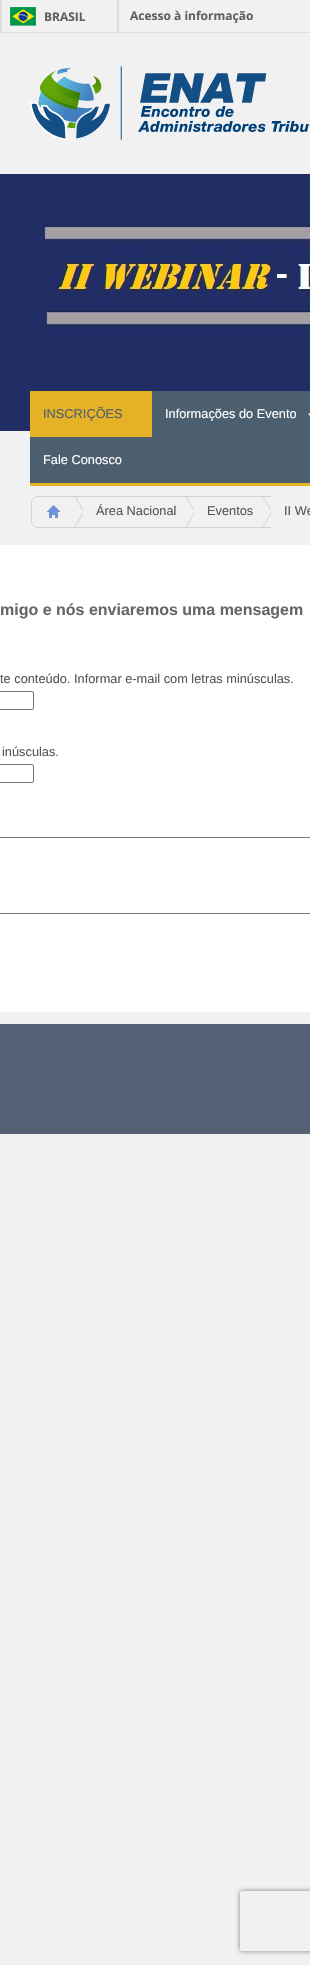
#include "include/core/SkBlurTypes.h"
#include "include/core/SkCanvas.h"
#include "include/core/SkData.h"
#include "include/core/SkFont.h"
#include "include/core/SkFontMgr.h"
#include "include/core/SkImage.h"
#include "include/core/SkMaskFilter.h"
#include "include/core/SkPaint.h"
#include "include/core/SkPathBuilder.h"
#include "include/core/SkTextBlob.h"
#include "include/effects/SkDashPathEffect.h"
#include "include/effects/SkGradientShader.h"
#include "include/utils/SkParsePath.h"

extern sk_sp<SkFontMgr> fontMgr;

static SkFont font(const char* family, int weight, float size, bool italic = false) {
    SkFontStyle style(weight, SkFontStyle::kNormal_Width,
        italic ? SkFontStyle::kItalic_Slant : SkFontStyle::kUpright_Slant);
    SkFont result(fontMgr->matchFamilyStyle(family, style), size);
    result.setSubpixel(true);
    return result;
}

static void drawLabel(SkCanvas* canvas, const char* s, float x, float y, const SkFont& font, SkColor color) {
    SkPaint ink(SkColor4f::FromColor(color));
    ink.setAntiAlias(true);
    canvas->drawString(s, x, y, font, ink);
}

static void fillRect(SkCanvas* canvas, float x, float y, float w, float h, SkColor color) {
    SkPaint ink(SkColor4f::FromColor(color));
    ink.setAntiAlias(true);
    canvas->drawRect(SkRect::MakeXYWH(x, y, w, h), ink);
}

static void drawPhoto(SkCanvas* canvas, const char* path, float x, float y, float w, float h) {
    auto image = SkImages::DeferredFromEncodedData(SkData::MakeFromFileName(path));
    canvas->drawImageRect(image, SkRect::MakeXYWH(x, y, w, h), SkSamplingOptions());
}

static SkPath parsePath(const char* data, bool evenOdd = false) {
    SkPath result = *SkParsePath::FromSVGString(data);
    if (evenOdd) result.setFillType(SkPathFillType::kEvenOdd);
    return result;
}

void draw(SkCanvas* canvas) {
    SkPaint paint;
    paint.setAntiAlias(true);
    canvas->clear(0xFFF1F1F1);
    fillRect(canvas, 0, 32, 310, 1, 0xFFDFDFDF);
    fillRect(canvas, 117, 0, 2, 32, 0xFFDFDFDF);
    fillRect(canvas, 0, 0, 2, 32, 0xFFDFDFDF);
    drawPhoto(canvas, "assets/img1.png", 10, 7, 26, 19);
    SkFont font1 = font("Open Sans", 700, 12);
    drawLabel(canvas, "BRASIL", 44, 21, font1, 0xFF606060);
    drawLabel(canvas, "Acesso à informação", 130, 20, font1, 0xFF606060);
    drawPhoto(canvas, "assets/img2.png", 30, 66, 280, 75);
    drawPhoto(canvas, "assets/img3.png", 0, 174, 310, 257);
    fillRect(canvas, 30, 391, 280, 92, 0xFF4C5F6E);
    fillRect(canvas, 30, 483, 280, 3, 0xFFE5B126);
    fillRect(canvas, 30, 391, 122, 46, 0xFFE5B126);
    SkFont font2 = font("Liberation Sans", 400, 12.8f);
    drawLabel(canvas, "INSCRIÇÕES", 43, 418, font2, 0xFF4C5F6E);
    drawPhoto(canvas, "assets/img4.png", 308, 413, 2, 4);
    drawLabel(canvas, "Informações do Evento", 165, 418, font2, 0xFFFFFFFF);
    drawLabel(canvas, "Fale Conosco", 43, 464, font2, 0xFFFFFFFF);
    drawPhoto(canvas, "assets/img5.png", 31, 496, 52, 32);
    drawPhoto(canvas, "assets/img6.png", 83, 496, 111, 32);
    drawLabel(canvas, "Área Nacional", 96, 515, font2, 0xFF555555);
    drawPhoto(canvas, "assets/img7.png", 194, 496, 77, 32);
    drawLabel(canvas, "Eventos", 207, 515, font2, 0xFF555555);
    drawLabel(canvas, "II We", 284, 515, font2, 0xFF555555);
    fillRect(canvas, 0, 545, 310, 467, 0xFFFFFFFF);
    SkFont font3 = font("Liberation Sans", 700, 16);
    drawLabel(canvas, "migo e nós enviaremos uma mensagem", 0, 615, font3, 0xFF666666);
    drawLabel(canvas, "te conteúdo. Informar e-mail com letras minúsculas.", 0, 683, font2, 0xFF555555);
    paint.setStroke(true);
    paint.setStrokeWidth(1);
    paint.setColor(0xFF767676);
    canvas->drawRoundRect(SkRect::MakeXYWH(-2.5f, 691.5f, 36, 18), 1.5f, 1.5f, paint);
    drawLabel(canvas, "inúsculas.", 2, 756, font2, 0xFF555555);
    canvas->drawRoundRect(SkRect::MakeXYWH(-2.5f, 764.5f, 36, 18), 1.5f, 1.5f, paint);
    canvas->drawRect(SkRect::MakeXYWH(-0.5f, 837.5f, 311, 76), paint);
    fillRect(canvas, 0, 1024, 310, 110, 0xFF546174);
    canvas->save();
    canvas->clipPath(parsePath("M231 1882H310V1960H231ZM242 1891H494C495 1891 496 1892 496 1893V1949C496 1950 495 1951 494 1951H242C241 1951 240 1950 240 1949V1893C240 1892 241 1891 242 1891Z", true), true);
    paint.setStroke(false);
    paint.setColor(0xFF808080);
    paint.setMaskFilter(SkMaskFilter::MakeBlur(kNormal_SkBlurStyle, 2.5f));
    canvas->drawRoundRect(SkRect::MakeXYWH(240, 1891, 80, 60), 2, 2, paint);
    paint.setMaskFilter(nullptr);
    canvas->restore();
}
